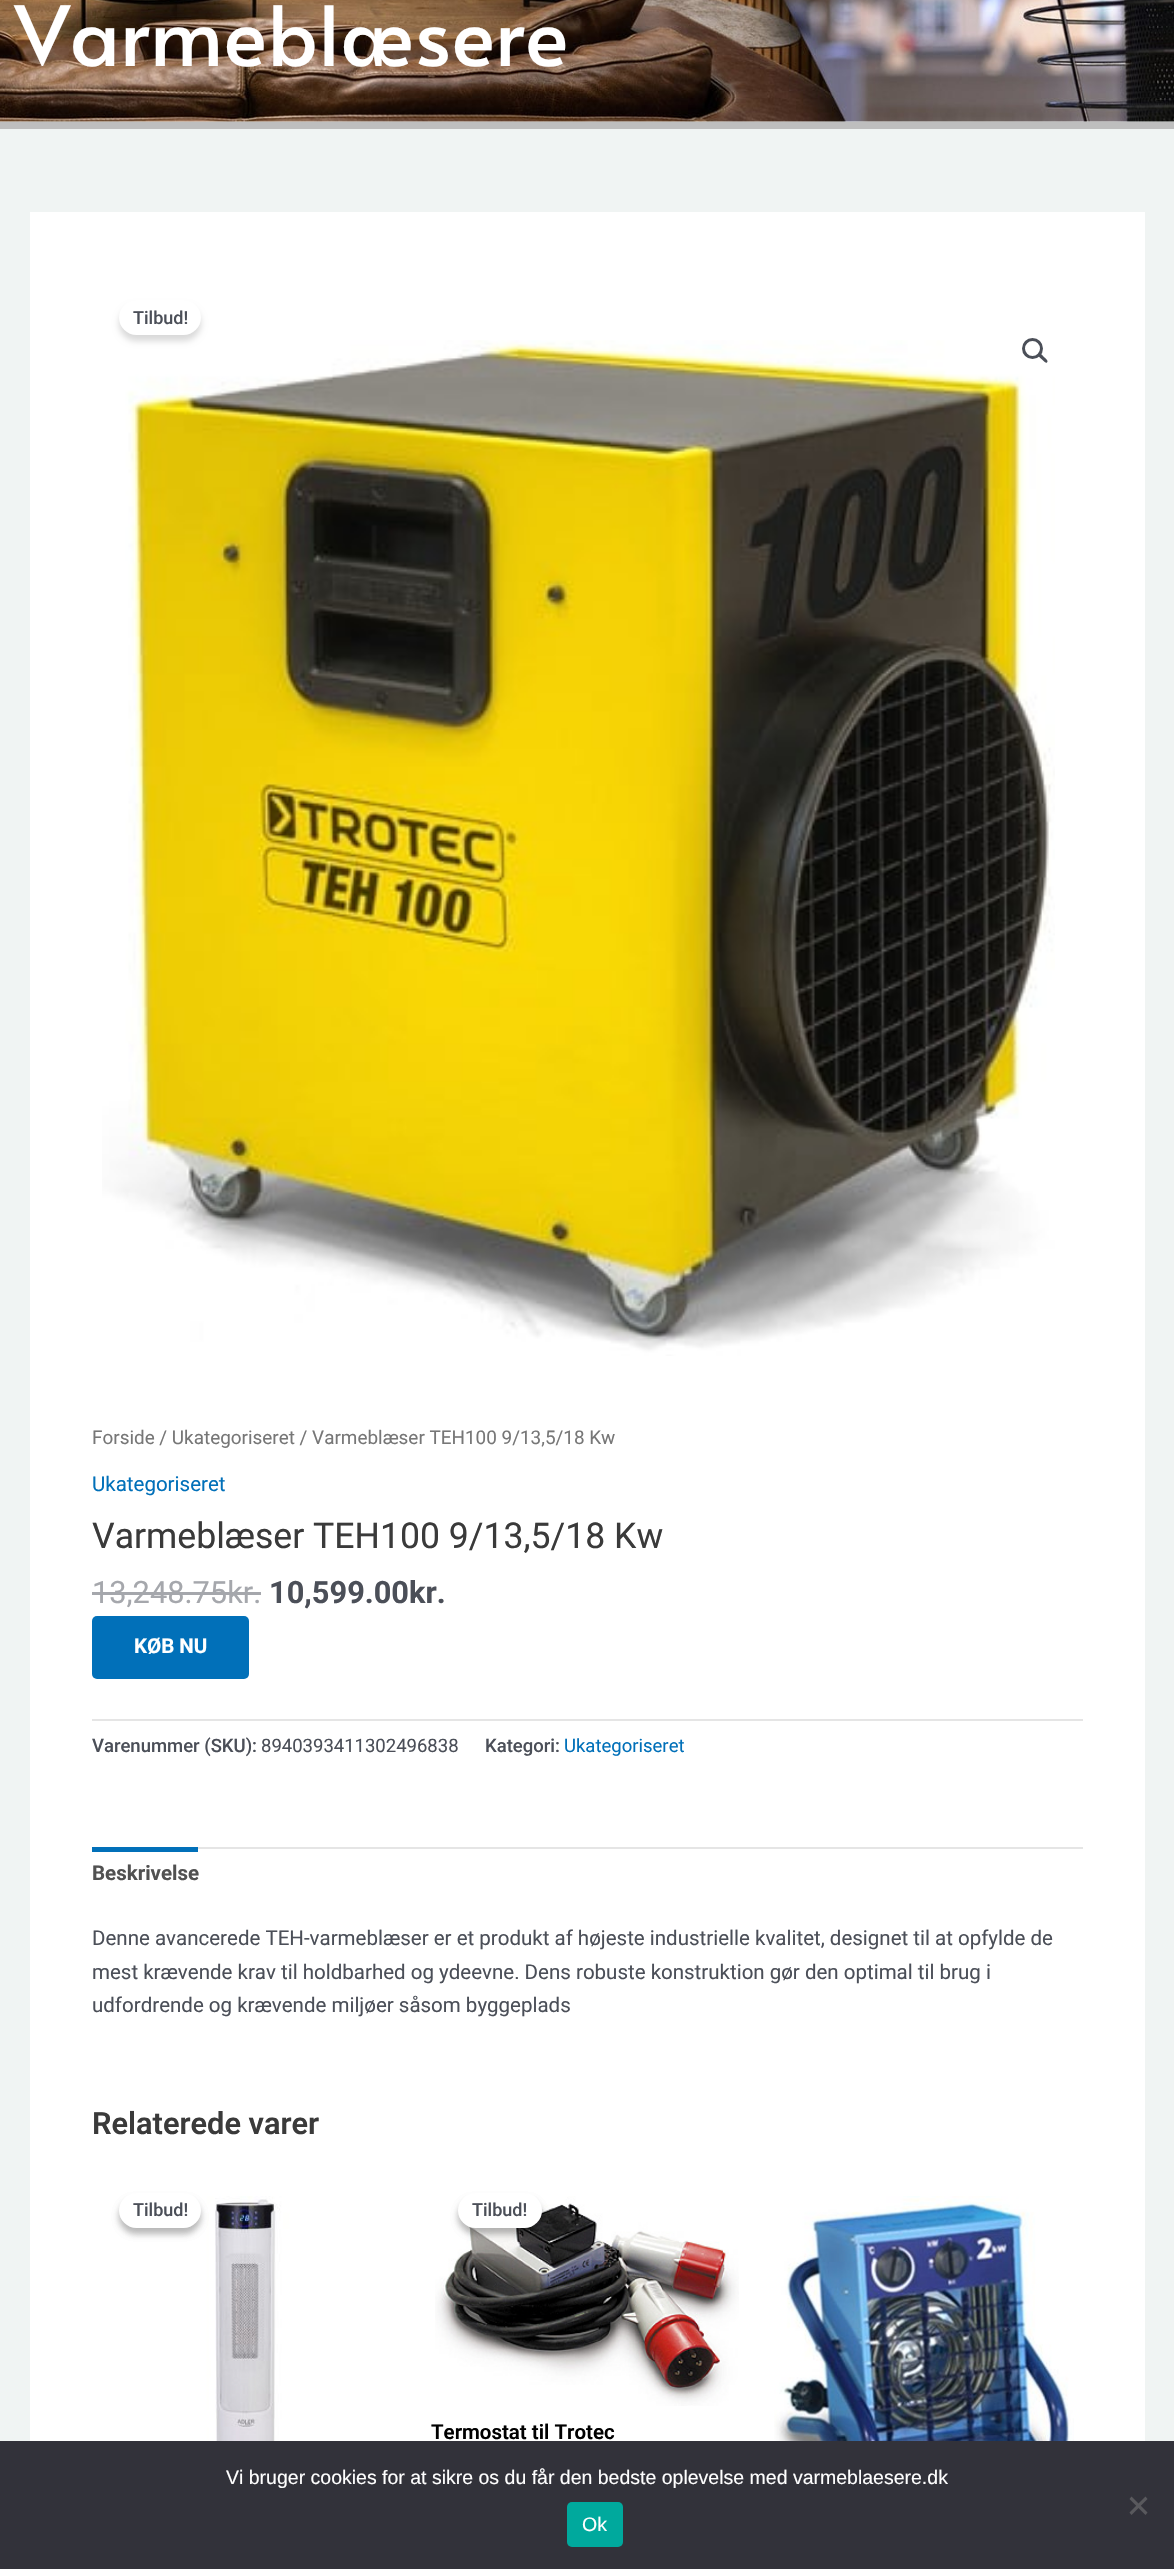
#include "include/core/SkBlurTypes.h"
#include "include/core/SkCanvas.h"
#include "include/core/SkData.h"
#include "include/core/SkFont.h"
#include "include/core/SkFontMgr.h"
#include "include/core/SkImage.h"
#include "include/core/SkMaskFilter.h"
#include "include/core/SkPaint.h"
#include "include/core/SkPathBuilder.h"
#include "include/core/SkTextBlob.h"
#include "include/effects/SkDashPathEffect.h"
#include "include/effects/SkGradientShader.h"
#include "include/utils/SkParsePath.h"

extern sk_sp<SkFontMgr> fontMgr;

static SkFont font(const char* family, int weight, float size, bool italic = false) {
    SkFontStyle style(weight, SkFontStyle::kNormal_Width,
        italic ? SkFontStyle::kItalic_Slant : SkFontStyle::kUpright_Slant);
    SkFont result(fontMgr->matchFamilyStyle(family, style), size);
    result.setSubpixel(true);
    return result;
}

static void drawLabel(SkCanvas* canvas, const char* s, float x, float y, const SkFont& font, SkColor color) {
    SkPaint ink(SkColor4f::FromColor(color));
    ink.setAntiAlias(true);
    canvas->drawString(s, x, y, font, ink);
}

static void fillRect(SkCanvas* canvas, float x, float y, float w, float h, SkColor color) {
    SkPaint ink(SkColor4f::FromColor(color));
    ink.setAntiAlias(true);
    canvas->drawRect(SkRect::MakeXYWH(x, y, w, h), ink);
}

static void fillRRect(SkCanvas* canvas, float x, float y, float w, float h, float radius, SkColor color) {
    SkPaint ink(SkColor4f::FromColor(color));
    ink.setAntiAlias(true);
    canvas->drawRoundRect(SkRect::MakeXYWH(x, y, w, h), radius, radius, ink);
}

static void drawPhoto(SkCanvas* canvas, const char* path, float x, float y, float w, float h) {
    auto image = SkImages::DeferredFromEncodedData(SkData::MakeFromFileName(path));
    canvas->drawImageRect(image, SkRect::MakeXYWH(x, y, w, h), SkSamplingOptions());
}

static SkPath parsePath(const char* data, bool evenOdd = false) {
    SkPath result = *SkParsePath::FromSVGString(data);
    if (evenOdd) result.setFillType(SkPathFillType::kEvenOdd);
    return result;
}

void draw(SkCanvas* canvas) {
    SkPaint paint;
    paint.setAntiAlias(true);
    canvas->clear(0xFFF0F4F3);
    drawPhoto(canvas, "assets/img1.png", 0, 0, 1174, 122);
    SkFont font1 = font("Alata", 400, 82.5f);
    drawLabel(canvas, "Varmeblæsere", 15, 66, font1, 0xFFFFFFFF);
    fillRect(canvas, 0, 122, 1174, 7, 0xFFBEBEBE);
    fillRect(canvas, 30, 212, 1115, 2229, 0xFFFFFFFF);
    drawPhoto(canvas, "assets/img2.png", 102, 340, 953, 1016);
    paint.setColor(0x26000000);
    paint.setMaskFilter(SkMaskFilter::MakeBlur(kNormal_SkBlurStyle, 3));
    canvas->drawRoundRect(SkRect::MakeXYWH(119, 306, 82, 35), 17.5f, 17.5f, paint);
    paint.setMaskFilter(nullptr);
    fillRRect(canvas, 119, 300, 82, 35, 17.5f, 0xFFFFFFFF);
    SkFont font2 = font("Roboto", 500, 18);
    drawLabel(canvas, "Tilbud!", 133, 324, font2, 0xFF4B4F58);
    paint.setStroke(true);
    paint.setStrokeWidth(3);
    paint.setColor(0xFF4B4F58);
    canvas->drawCircle(1032.5f, 348.5f, 9, paint);
    paint.setStroke(false);
    canvas->drawPath(parsePath("M1038.5 354C1040.5 352 1043 356 1044 357C1045 358 1049 360.5 1047 362.5C1045.5 364 1043 360 1042 359.5C1041 358.5 1037 355.5 1038.5 354Z"), paint);
    SkFont font3 = font("Roboto", 400, 18.9f);
    drawLabel(canvas, "Forside / Ukategoriseret / Varmeblæser TEH100 9/13,5/18 Kw", 92, 1444, font3, 0xFF777777);
    SkFont font4 = font("Roboto", 400, 20.5f);
    drawLabel(canvas, "Ukategoriseret", 92, 1491, font4, 0xFF0170B9);
    SkFont font5 = font("Roboto", 400, 35.6f);
    drawLabel(canvas, "Varmeblæser TEH100 9/13,5/18 Kw", 92, 1548, font5, 0xFF3A3A3A);
    SkFont font6 = font("Roboto", 400, 30.75f);
    drawLabel(canvas, "13,248.75kr.", 92, 1603, font6, 0xFFA5A7AC);
    fillRect(canvas, 92, 1592, 169, 3, 0xFFA5A7AC);
    SkFont font7 = font("Roboto", 700, 30.75f);
    drawLabel(canvas, "10,599.00kr.", 269, 1603, font7, 0xFF4B4F58);
    fillRRect(canvas, 92, 1616, 157, 63, 5, 0xFF0170B9);
    SkFont font8 = font("Roboto", 700, 20.5f);
    drawLabel(canvas, "KØB NU", 134, 1653, font8, 0xFFFFFFFF);
    fillRect(canvas, 92, 1719, 991, 2, 0xFFE5E5E5);
    SkFont font9 = font("Roboto", 500, 18.5f);
    drawLabel(canvas, "Varenummer (SKU):", 92, 1752, font9, 0xFF4B4F58);
    SkFont font10 = font("Roboto", 400, 18.5f);
    drawLabel(canvas, "8940393411302496838", 261, 1752, font10, 0xFF4B4F58);
    drawLabel(canvas, "Kategori:", 485, 1752, font9, 0xFF4B4F58);
    drawLabel(canvas, "Ukategoriseret", 564, 1752, font10, 0xFF0170B9);
    fillRect(canvas, 198, 1847, 885, 2, 0xFFE5E5E5);
    fillRect(canvas, 92, 1847, 106, 5, 0xFF0170B9);
    drawLabel(canvas, "Beskrivelse", 92, 1880, font8, 0xFF515151);
    drawLabel(canvas, "Denne avancerede TEH-varmeblæser er et produkt af højeste industrielle kvalitet, designet til at opfylde de", 92, 1945, font4, 0xFF4B4F58);
    drawLabel(canvas, "mest krævende krav til holdbarhed og ydeevne. Dens robuste konstruktion gør den optimal til brug i", 92, 1979, font4, 0xFF4B4F58);
    drawLabel(canvas, "udfordrende og krævende miljøer såsom byggeplads", 92, 2012, font4, 0xFF4B4F58);
    SkFont font11 = font("Roboto", 600, 30.75f);
    drawLabel(canvas, "Relaterede varer", 92, 2134, font11, 0xFF3A3A3A);
    drawPhoto(canvas, "assets/img3.png", 196, 2196, 100, 245);
    paint.setColor(0x26000000);
    paint.setMaskFilter(SkMaskFilter::MakeBlur(kNormal_SkBlurStyle, 3));
    canvas->drawRoundRect(SkRect::MakeXYWH(119, 2199, 82, 35), 17.5f, 17.5f, paint);
    paint.setMaskFilter(nullptr);
    paint.setMaskFilter(SkMaskFilter::MakeBlur(kNormal_SkBlurStyle, 3));
    canvas->drawRoundRect(SkRect::MakeXYWH(119, 2199, 82, 35), 17.5f, 17.5f, paint);
    paint.setMaskFilter(nullptr);
    fillRRect(canvas, 119, 2193, 82, 35, 17.5f, 0xFFFFFFFF);
    drawLabel(canvas, "Tilbud!", 133, 2216, font2, 0xFF4B4F58);
    drawPhoto(canvas, "assets/img4.png", 435, 2196, 304, 210);
    paint.setMaskFilter(SkMaskFilter::MakeBlur(kNormal_SkBlurStyle, 3));
    canvas->drawRoundRect(SkRect::MakeXYWH(458, 2199, 84, 35), 17.5f, 17.5f, paint);
    paint.setMaskFilter(nullptr);
    paint.setMaskFilter(SkMaskFilter::MakeBlur(kNormal_SkBlurStyle, 3));
    canvas->drawRoundRect(SkRect::MakeXYWH(458, 2199, 84, 35), 17.5f, 17.5f, paint);
    paint.setMaskFilter(nullptr);
    fillRRect(canvas, 458, 2193, 84, 35, 17.5f, 0xFFFFFFFF);
    drawLabel(canvas, "Tilbud!", 472, 2216, font2, 0xFF4B4F58);
    SkFont font12 = font("Roboto", 600, 20.5f);
    drawLabel(canvas, "Termostat til Trotec", 431, 2439, font12, 0xFF000000);
    drawPhoto(canvas, "assets/img5.png", 774, 2196, 300, 245);
    fillRect(canvas, 0, 2441, 1174, 128, 0xFF32323A);
    SkFont font13 = font("Liberation Sans", 400, 19.5f);
    drawLabel(canvas, "Vi bruger cookies for at sikre os du får den bedste oplevelse med varmeblaesere.dk", 226, 2484, font13, 0xFFFFFFFF);
    paint.setColor(0xFF59595D);
    canvas->drawPath(parsePath("M1145.5 2496.5L1147.5 2499L1131.5 2515L1129.5 2512.5Z"), paint);
    canvas->drawPath(parsePath("M1129.5 2499L1131.5 2496.5L1147.5 2512.5L1145.5 2515Z"), paint);
    fillRRect(canvas, 567, 2502, 56, 45, 5, 0xFF00A99D);
    drawLabel(canvas, "Ok", 582, 2531, font13, 0xFFFFFFFF);
}
